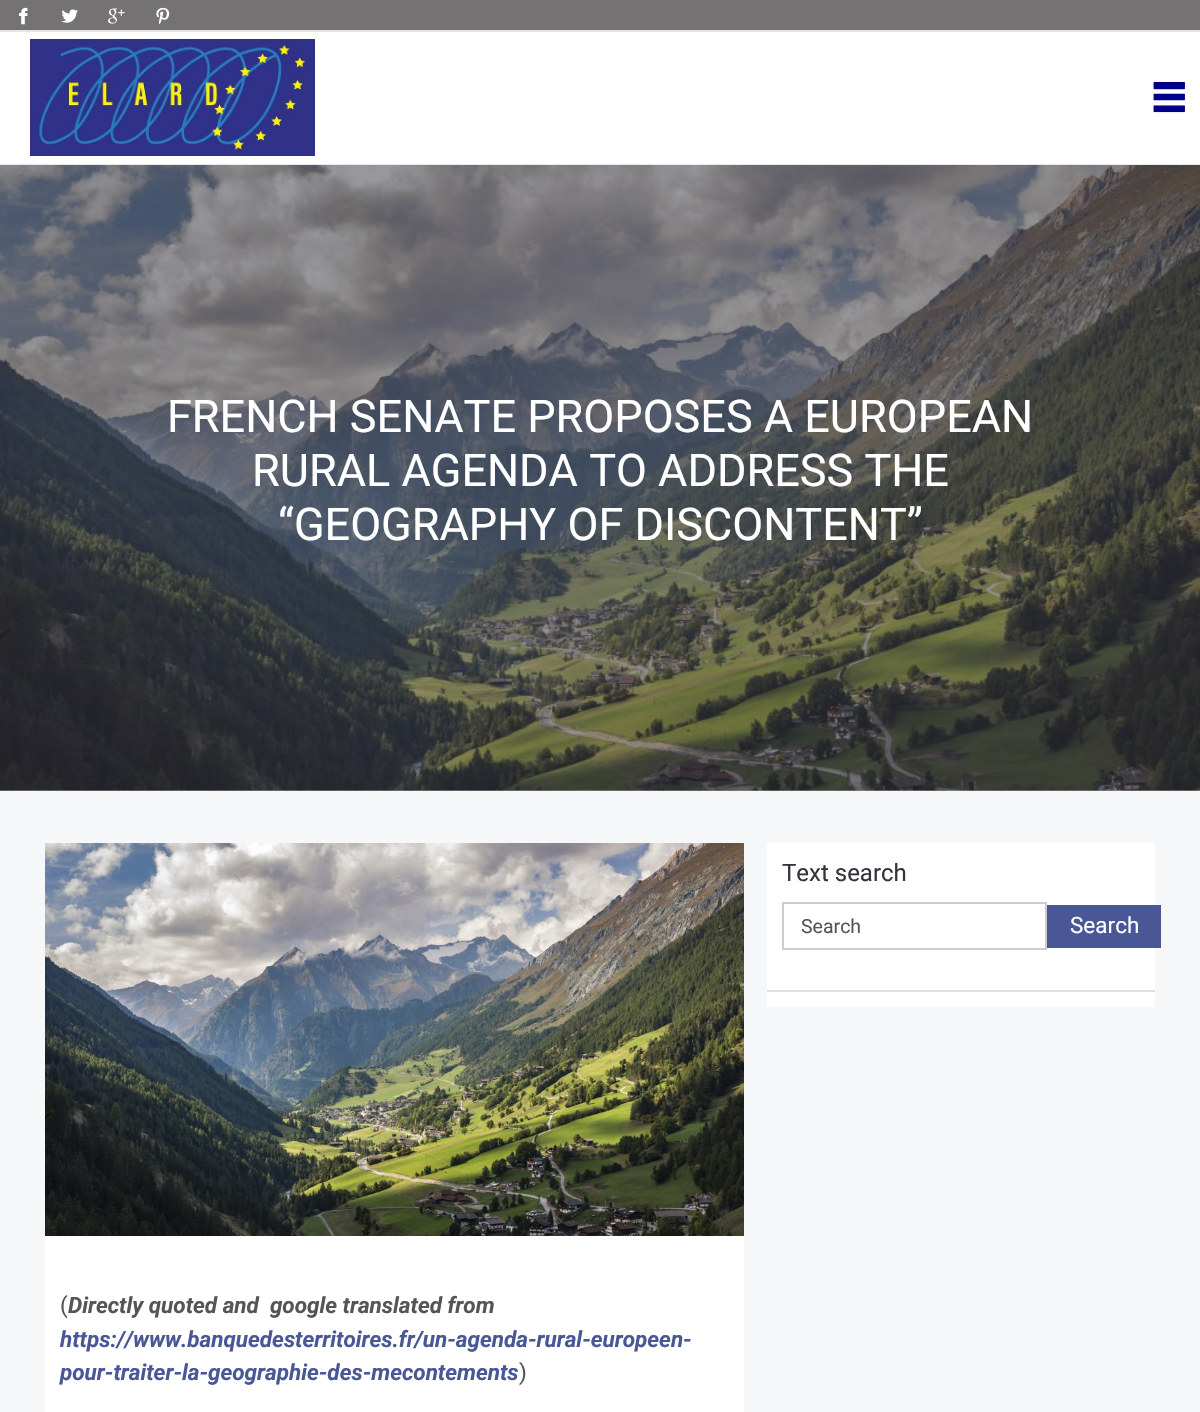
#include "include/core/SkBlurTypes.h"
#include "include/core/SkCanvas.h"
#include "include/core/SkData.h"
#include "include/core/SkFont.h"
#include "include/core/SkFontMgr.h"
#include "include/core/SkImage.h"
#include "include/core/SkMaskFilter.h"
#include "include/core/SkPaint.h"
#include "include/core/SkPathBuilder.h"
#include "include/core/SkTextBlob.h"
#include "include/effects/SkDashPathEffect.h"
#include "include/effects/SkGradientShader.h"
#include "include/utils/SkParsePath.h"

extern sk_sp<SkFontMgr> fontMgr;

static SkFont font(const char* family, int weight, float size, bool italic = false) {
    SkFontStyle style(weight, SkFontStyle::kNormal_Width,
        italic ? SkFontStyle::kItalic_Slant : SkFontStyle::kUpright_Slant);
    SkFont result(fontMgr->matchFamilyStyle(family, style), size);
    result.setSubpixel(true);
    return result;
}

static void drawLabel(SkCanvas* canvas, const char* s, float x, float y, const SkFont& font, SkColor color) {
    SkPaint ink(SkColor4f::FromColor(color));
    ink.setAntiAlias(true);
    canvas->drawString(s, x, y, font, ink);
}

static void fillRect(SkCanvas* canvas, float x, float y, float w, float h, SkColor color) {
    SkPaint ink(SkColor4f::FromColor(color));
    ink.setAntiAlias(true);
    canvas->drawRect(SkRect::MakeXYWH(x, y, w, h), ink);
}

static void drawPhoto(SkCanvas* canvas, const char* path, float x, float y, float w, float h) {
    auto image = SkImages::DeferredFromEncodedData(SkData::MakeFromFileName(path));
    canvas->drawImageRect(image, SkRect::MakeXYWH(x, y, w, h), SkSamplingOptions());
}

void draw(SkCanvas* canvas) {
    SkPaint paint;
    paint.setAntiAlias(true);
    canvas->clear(0xFFF6F7F9);
    fillRect(canvas, 0, 790, 1200, 1, 0xFF95969B);
    fillRect(canvas, 0, 32, 1200, 132, 0xFFFFFFFF);
    fillRect(canvas, 0, 0, 1200, 30, 0xFF747272);
    fillRect(canvas, 0, 30, 1200, 2, 0xFFE5E5E5);
    drawPhoto(canvas, "assets/img1.png", 19, 7, 9, 18);
    drawPhoto(canvas, "assets/img2.png", 61, 9, 17, 14);
    drawPhoto(canvas, "assets/img3.png", 108, 8, 17, 16);
    drawPhoto(canvas, "assets/img4.png", 156, 7, 14, 18);
    fillRect(canvas, 0, 164, 1200, 1, 0xFFE9E9ED);
    drawPhoto(canvas, "assets/img5.png", 30, 39, 285, 117);
    drawPhoto(canvas, "assets/img6.png", 1153, 82, 32, 31);
    drawPhoto(canvas, "assets/img7.png", 0, 165, 1200, 626);
    SkFont font1 = font("Roboto", 400, 45);
    drawLabel(canvas, "FRENCH SENATE PROPOSES A EUROPEAN", 167, 432, font1, 0xFFFFFFFF);
    drawLabel(canvas, "RURAL AGENDA TO ADDRESS THE", 252, 486, font1, 0xFFFFFFFF);
    drawLabel(canvas, "“GEOGRAPHY OF DISCONTENT”", 278, 540, font1, 0xFFFFFFFF);
    fillRect(canvas, 767, 843, 388, 164, 0xFFFFFFFF);
    fillRect(canvas, 767, 990, 388, 2, 0xFFE0E0E0);
    SkFont font2 = font("Roboto", 400, 24);
    drawLabel(canvas, "Text search", 782, 881, font2, 0xFF34343C);
    paint.setStroke(true);
    paint.setStrokeWidth(2);
    paint.setColor(0xFFCCCCCC);
    canvas->drawRect(SkRect::MakeXYWH(783, 903, 263, 46), paint);
    SkFont font3 = font("Roboto", 400, 19.5f);
    drawLabel(canvas, "Search", 801, 933, font3, 0xFF555555);
    fillRect(canvas, 1047, 905, 114, 43, 0xFF495797);
    SkFont font4 = font("Roboto", 400, 22.5f);
    drawLabel(canvas, "Search", 1070, 933, font4, 0xFFFFFFFF);
    fillRect(canvas, 45, 1236, 699, 176, 0xFFFFFFFF);
    drawPhoto(canvas, "assets/img8.png", 45, 843, 699, 393);
    drawLabel(canvas, "(", 60, 1313, font4, 0xFF555555);
    SkFont font5 = font("Roboto", 700, 22.5f, true);
    drawLabel(canvas, "Directly quoted and  google translated from", 68, 1313, font5, 0xFF555555);
    drawLabel(canvas, "https://www.banquedesterritoires.fr/un-agenda-rural-europeen-", 60, 1347, font5, 0xFF495797);
    drawLabel(canvas, "pour-traiter-la-geographie-des-mecontements", 60, 1380, font5, 0xFF495797);
    drawLabel(canvas, ")", 519, 1380, font4, 0xFF555555);
}
